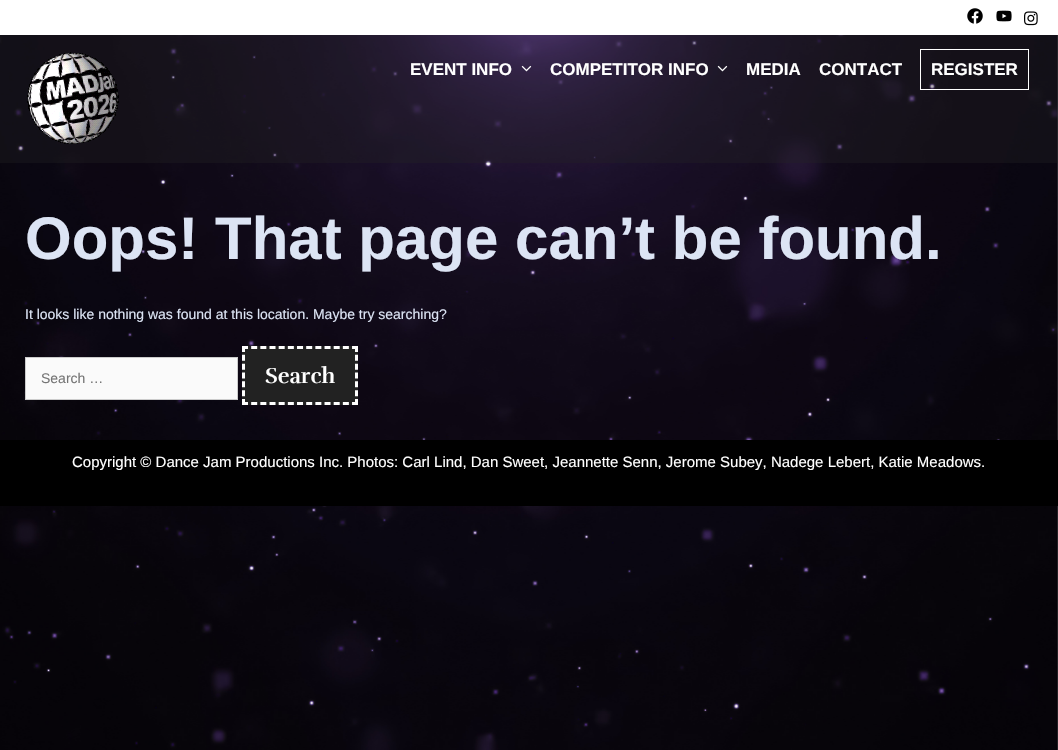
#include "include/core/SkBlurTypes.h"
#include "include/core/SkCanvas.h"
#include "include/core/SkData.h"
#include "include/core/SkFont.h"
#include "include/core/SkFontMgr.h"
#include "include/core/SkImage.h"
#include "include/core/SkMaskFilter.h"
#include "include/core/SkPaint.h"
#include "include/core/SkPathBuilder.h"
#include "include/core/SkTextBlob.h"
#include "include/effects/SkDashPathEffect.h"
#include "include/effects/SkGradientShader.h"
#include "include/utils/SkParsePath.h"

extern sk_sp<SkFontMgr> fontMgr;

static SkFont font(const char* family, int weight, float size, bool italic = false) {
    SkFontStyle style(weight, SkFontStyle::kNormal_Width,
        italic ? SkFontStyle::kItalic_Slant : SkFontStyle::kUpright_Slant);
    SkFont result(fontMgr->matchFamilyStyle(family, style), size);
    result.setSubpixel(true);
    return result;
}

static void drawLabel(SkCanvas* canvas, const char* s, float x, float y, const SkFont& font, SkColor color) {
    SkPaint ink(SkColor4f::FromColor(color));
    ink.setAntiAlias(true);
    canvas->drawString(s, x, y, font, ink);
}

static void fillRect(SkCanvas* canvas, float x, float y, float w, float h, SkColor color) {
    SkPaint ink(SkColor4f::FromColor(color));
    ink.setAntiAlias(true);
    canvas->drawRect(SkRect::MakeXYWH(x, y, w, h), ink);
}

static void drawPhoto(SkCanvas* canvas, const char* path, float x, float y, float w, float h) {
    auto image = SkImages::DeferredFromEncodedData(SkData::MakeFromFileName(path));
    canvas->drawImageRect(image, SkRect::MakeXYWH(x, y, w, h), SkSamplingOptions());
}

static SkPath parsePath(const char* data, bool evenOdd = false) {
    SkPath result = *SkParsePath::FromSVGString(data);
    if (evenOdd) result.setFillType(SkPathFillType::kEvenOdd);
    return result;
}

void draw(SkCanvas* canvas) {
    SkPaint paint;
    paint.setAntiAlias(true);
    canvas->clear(0xFFFFFFFF);
    drawPhoto(canvas, "assets/img1.png", 0, 35, 1058, 715);
    drawPhoto(canvas, "assets/img2.png", 967, 8, 16, 16);
    drawPhoto(canvas, "assets/img3.png", 996, 10, 16, 12);
    drawPhoto(canvas, "assets/img4.png", 1024, 11, 14, 15);
    fillRect(canvas, 0, 35, 1058, 128, 0x54222222);
    drawPhoto(canvas, "assets/img5.png", 27, 52, 92, 92);
    SkFont font1 = font("Liberation Sans", 700, 17);
    drawLabel(canvas, "EVENT INFO", 410, 75, font1, 0xFFFFFFFF);
    drawPhoto(canvas, "assets/img6.png", 521, 65, 11, 7);
    drawLabel(canvas, "COMPETITOR INFO", 550, 75, font1, 0xFFFFFFFF);
    drawPhoto(canvas, "assets/img7.png", 717, 65, 11, 7);
    drawLabel(canvas, "MEDIA", 746, 75, font1, 0xFFFFFFFF);
    drawLabel(canvas, "CONTACT", 819, 75, font1, 0xFFFFFFFF);
    paint.setStroke(true);
    paint.setStrokeWidth(1);
    paint.setColor(0xFFFFFFFF);
    canvas->drawRect(SkRect::MakeXYWH(920.5f, 49.5f, 108, 40), paint);
    drawLabel(canvas, "REGISTER", 931, 75, font1, 0xFFFFFFFF);
    SkFont font2 = font("Liberation Sans", 700, 60);
    drawLabel(canvas, "Oops! That page can’t be found.", 25, 259, font2, 0xFFDCE4F4);
    SkFont font3 = font("Liberation Sans", 400, 14);
    drawLabel(canvas, "It looks like nothing was found at this location. Maybe try searching?", 25, 319, font3, 0xFFDCE4F4);
    paint.setStroke(false);
    paint.setColor(0xFFFAFAFA);
    canvas->drawRect(SkRect::MakeXYWH(25.5f, 357.5f, 212, 42), paint);
    paint.setStroke(true);
    paint.setColor(0xFFCCCCCC);
    canvas->drawRect(SkRect::MakeXYWH(25.5f, 357.5f, 212, 42), paint);
    drawLabel(canvas, "Search …", 41, 383, font3, 0xFF757575);
    fillRect(canvas, 242, 346, 116, 59, 0xFF222222);
    paint.setStrokeWidth(3);
    paint.setColor(0xFFFFFFFF);
    paint.setPathEffect(SkDashPathEffect::Make({{6, 3.17f}}, 0));
    canvas->drawPath(parsePath("M242 347.5H358"), paint);
    paint.setPathEffect(nullptr);
    paint.setPathEffect(SkDashPathEffect::Make({{6, 2.83f}}, 0));
    canvas->drawPath(parsePath("M356.5 346V405"), paint);
    paint.setPathEffect(nullptr);
    paint.setPathEffect(SkDashPathEffect::Make({{6, 3.17f}}, 0));
    canvas->drawPath(parsePath("M242 403.5H358"), paint);
    paint.setPathEffect(nullptr);
    paint.setPathEffect(SkDashPathEffect::Make({{6, 2.83f}}, 0));
    canvas->drawPath(parsePath("M243.5 346V405"), paint);
    paint.setPathEffect(nullptr);
    SkFont font4 = font("Rufina", 700, 22);
    drawLabel(canvas, "Search", 265, 383, font4, 0xFFFFFFFF);
    fillRect(canvas, 0, 440, 1058, 66, 0xFF000000);
    SkFont font5 = font("Liberation Sans", 400, 15);
    drawLabel(canvas, "Copyright © Dance Jam Productions Inc. Photos: Carl Lind, Dan Sweet, Jeannette Senn, Jerome Subey, Nadege Lebert, Katie Meadows.", 72, 467, font5, 0xFFFFFFFF);
}
